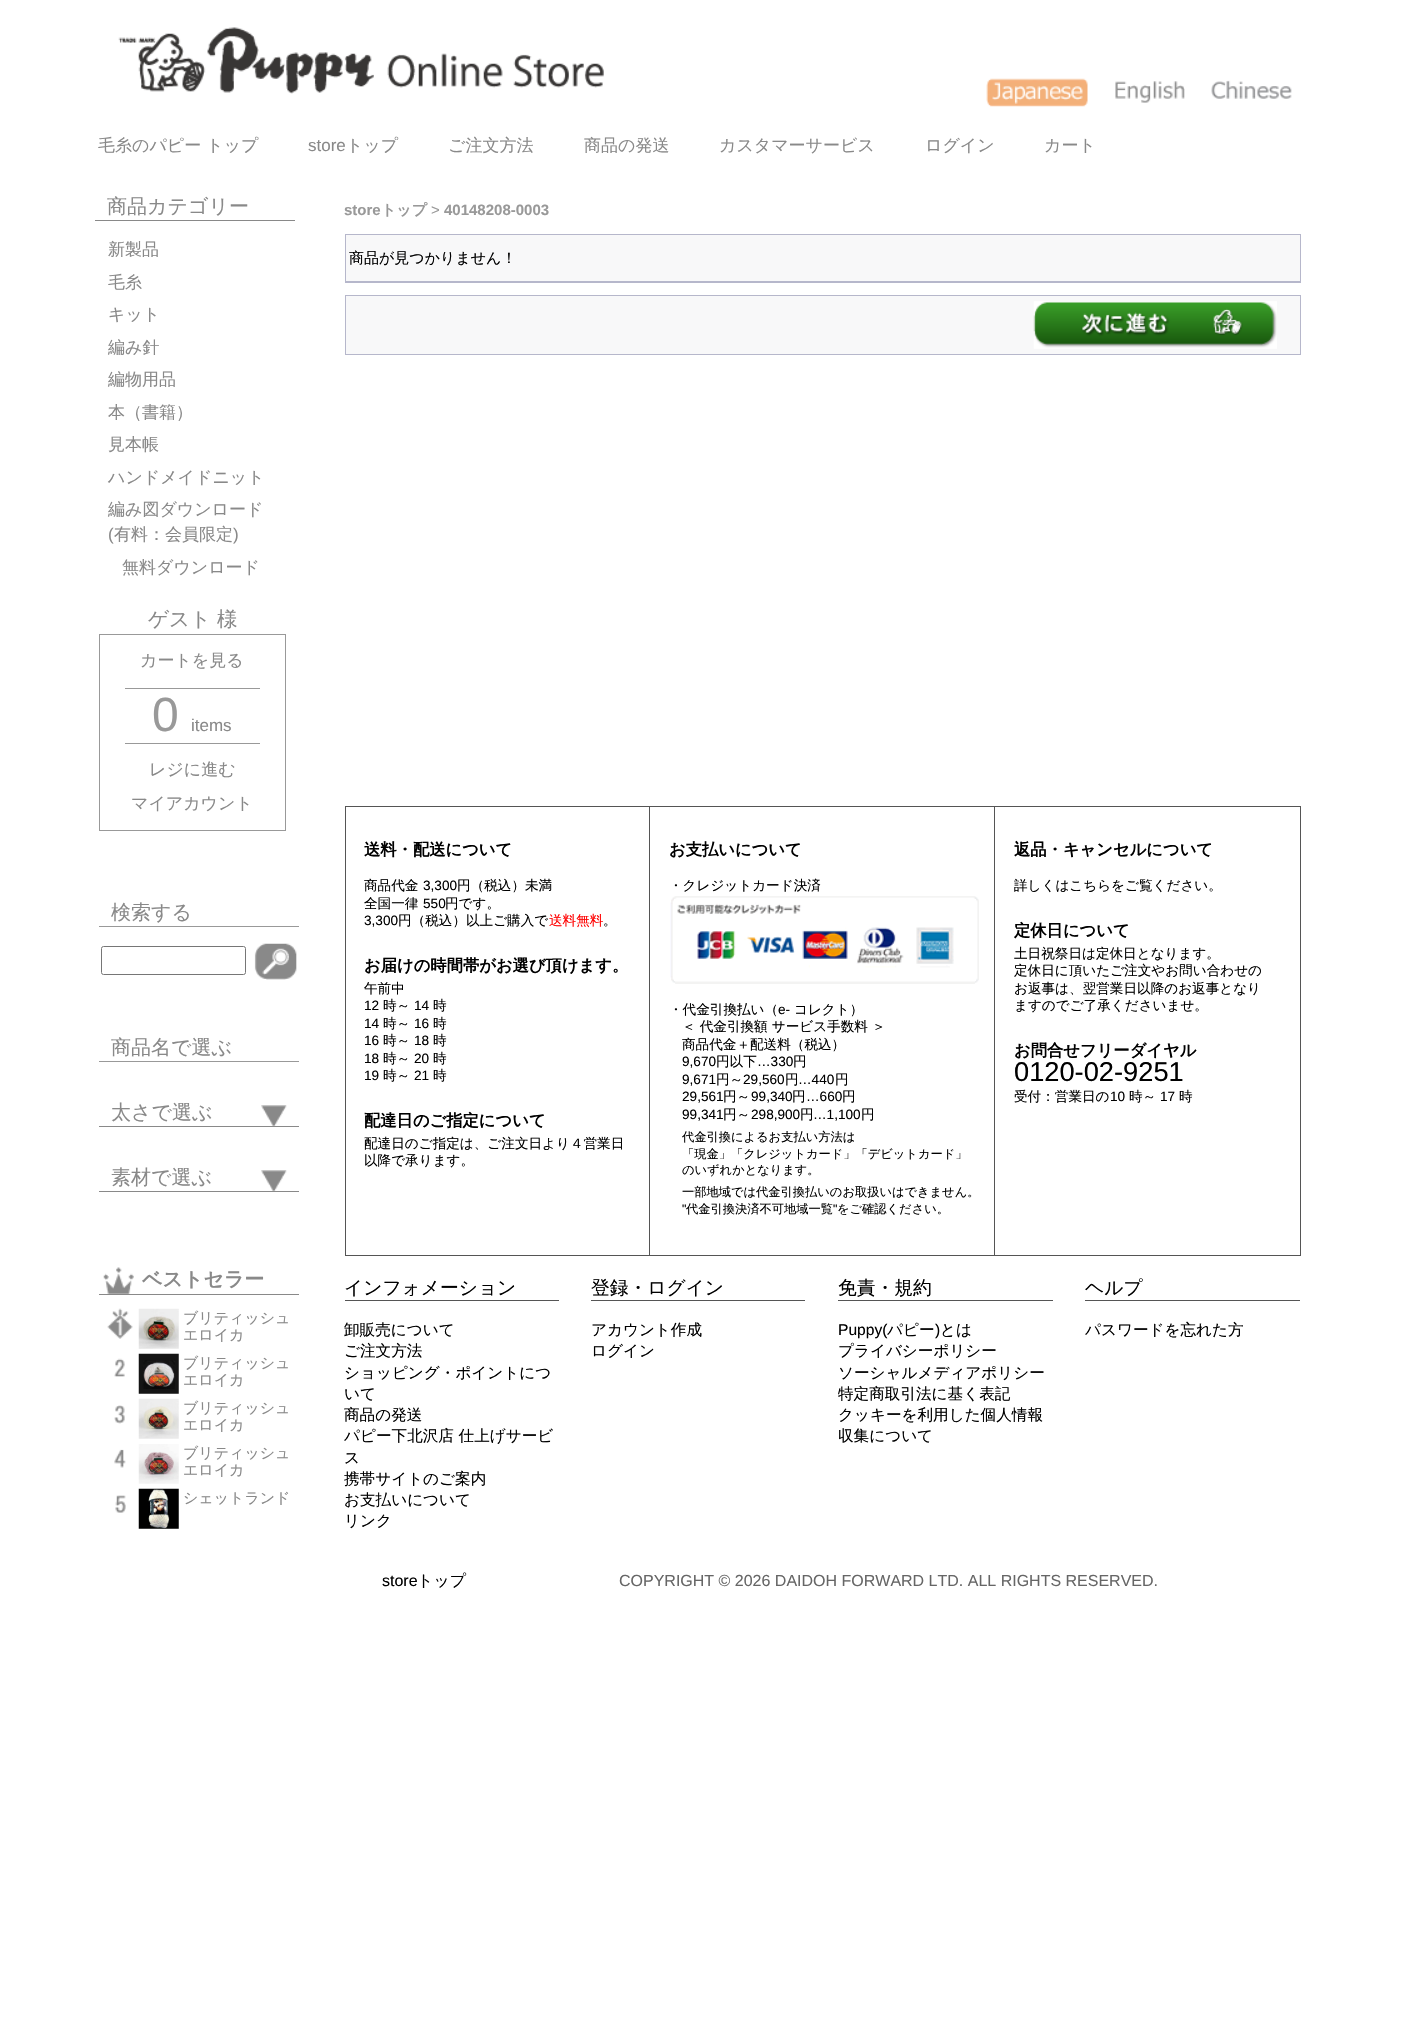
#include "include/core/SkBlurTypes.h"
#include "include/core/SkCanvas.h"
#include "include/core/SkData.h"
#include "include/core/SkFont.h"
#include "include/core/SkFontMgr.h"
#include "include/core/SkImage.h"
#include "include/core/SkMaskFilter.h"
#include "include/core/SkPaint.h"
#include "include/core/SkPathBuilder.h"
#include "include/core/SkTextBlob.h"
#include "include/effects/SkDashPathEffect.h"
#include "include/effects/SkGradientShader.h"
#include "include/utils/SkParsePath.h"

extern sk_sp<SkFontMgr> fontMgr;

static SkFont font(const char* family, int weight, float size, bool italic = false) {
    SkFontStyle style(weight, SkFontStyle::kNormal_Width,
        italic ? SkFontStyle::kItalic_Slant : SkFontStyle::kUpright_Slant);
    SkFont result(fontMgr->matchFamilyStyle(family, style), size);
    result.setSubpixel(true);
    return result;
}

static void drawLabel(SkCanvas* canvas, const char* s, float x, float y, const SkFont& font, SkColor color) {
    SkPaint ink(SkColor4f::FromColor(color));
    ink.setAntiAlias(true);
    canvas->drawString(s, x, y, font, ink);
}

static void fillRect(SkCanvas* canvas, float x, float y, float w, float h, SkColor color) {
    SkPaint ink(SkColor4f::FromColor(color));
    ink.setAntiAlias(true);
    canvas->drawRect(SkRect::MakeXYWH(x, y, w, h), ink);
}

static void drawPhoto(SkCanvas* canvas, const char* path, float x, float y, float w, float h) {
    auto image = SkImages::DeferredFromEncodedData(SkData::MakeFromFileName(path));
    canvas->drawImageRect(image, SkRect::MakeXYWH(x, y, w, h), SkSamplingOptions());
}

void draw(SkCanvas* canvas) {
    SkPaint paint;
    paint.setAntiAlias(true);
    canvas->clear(0xFFFFFFFF);
    drawPhoto(canvas, "assets/img1.png", 118, 27, 486, 67);
    drawPhoto(canvas, "assets/img2.png", 986, 78, 102, 29);
    drawPhoto(canvas, "assets/img3.png", 1115, 81, 70, 22);
    drawPhoto(canvas, "assets/img4.png", 1211, 80, 81, 19);
    SkFont font1 = font("WenQuanYi Zen Hei", 500, 17);
    drawLabel(canvas, "毛糸のパピー トップ", 98, 151, font1, 0xFF898989);
    SkFont font2 = font("Liberation Sans", 400, 17);
    drawLabel(canvas, "store", 308, 151, font2, 0xFF898989);
    drawLabel(canvas, "トップ", 346, 151, font1, 0xFF898989);
    drawLabel(canvas, "ご注文方法", 448, 151, font1, 0xFF898989);
    drawLabel(canvas, "商品の発送", 584, 151, font1, 0xFF898989);
    drawLabel(canvas, "カスタマーサービス", 719, 151, font1, 0xFF898989);
    drawLabel(canvas, "ログイン", 925, 151, font1, 0xFF898989);
    drawLabel(canvas, "カート", 1044, 151, font1, 0xFF898989);
    fillRect(canvas, 95, 220, 200, 1, 0xFF898989);
    SkFont font3 = font("WenQuanYi Zen Hei", 500, 20);
    drawLabel(canvas, "商品カテゴリー", 107, 213, font3, 0xFF898989);
    drawLabel(canvas, "新製品", 108, 255, font1, 0xFF898989);
    drawLabel(canvas, "毛糸", 108, 288, font1, 0xFF898989);
    drawLabel(canvas, "キット", 108, 320, font1, 0xFF898989);
    drawLabel(canvas, "編み針", 108, 353, font1, 0xFF898989);
    drawLabel(canvas, "編物用品", 108, 385, font1, 0xFF898989);
    drawLabel(canvas, "本（書籍）", 108, 418, font1, 0xFF898989);
    drawLabel(canvas, "見本帳", 108, 450, font1, 0xFF898989);
    drawLabel(canvas, "ハンドメイドニット", 108, 483, font1, 0xFF898989);
    drawLabel(canvas, "編み図ダウンロード", 108, 515, font1, 0xFF898989);
    drawLabel(canvas, "(", 108, 540, font2, 0xFF898989);
    drawLabel(canvas, "有料：会員限定", 114, 540, font1, 0xFF898989);
    drawLabel(canvas, ")", 233, 540, font2, 0xFF898989);
    drawLabel(canvas, "無料ダウンロード", 122, 573, font1, 0xFF898989);
    SkFont font4 = font("WenQuanYi Zen Hei", 500, 20.5f);
    drawLabel(canvas, "ゲスト 様", 148, 626, font4, 0xFF898989);
    paint.setStroke(true);
    paint.setStrokeWidth(1);
    paint.setColor(0xFF999999);
    canvas->drawRect(SkRect::MakeXYWH(99.5f, 634.5f, 186, 196), paint);
    drawLabel(canvas, "カートを見る", 140, 666, font1, 0xFF898989);
    fillRect(canvas, 125, 688, 135, 1, 0xFF999999);
    fillRect(canvas, 125, 743, 135, 1, 0xFF999999);
    SkFont font5 = font("Liberation Sans", 400, 48);
    drawLabel(canvas, "0", 152, 731, font5, 0xFF999999);
    drawLabel(canvas, "items", 191, 731, font2, 0xFF898989);
    drawLabel(canvas, "レジに進む", 149, 775, font1, 0xFF898989);
    drawLabel(canvas, "マイアカウント", 131, 809, font1, 0xFF898989);
    fillRect(canvas, 99, 926, 200, 1, 0xFF999999);
    drawLabel(canvas, "検索する", 111, 919, font3, 0xFF898989);
    paint.setColor(0xFF767676);
    canvas->drawRoundRect(SkRect::MakeXYWH(101.5f, 946.5f, 144, 28), 2, 2, paint);
    drawPhoto(canvas, "assets/img5.png", 254, 943, 43, 37);
    fillRect(canvas, 99, 1061, 200, 1, 0xFF999999);
    drawLabel(canvas, "商品名で選ぶ", 111, 1054, font3, 0xFF898989);
    drawPhoto(canvas, "assets/img6.png", 261, 1105, 26, 21);
    fillRect(canvas, 99, 1126, 200, 1, 0xFF898989);
    drawLabel(canvas, "太さで選ぶ", 111, 1119, font3, 0xFF898989);
    drawPhoto(canvas, "assets/img7.png", 261, 1170, 26, 21);
    fillRect(canvas, 99, 1191, 200, 1, 0xFF898989);
    drawLabel(canvas, "素材で選ぶ", 111, 1184, font3, 0xFF898989);
    drawPhoto(canvas, "assets/img8.png", 103, 1267, 31, 27);
    fillRect(canvas, 99, 1294, 200, 1, 0xFF898989);
    SkFont font6 = font("WenQuanYi Zen Hei", 700, 20);
    drawLabel(canvas, "ベストセラー", 142, 1286, font6, 0xFF898989);
    drawPhoto(canvas, "assets/img9.png", 107, 1308, 26, 31);
    drawPhoto(canvas, "assets/img10.png", 138, 1308, 41, 41);
    SkFont font7 = font("WenQuanYi Zen Hei", 500, 15);
    drawLabel(canvas, "ブリティッシュ", 183, 1323, font7, 0xFF898989);
    drawLabel(canvas, "エロイカ", 183, 1340, font7, 0xFF898989);
    drawPhoto(canvas, "assets/img11.png", 114, 1358, 11, 19);
    drawPhoto(canvas, "assets/img12.png", 138, 1353, 41, 41);
    drawLabel(canvas, "ブリティッシュ", 183, 1368, font7, 0xFF898989);
    drawLabel(canvas, "エロイカ", 183, 1385, font7, 0xFF898989);
    drawPhoto(canvas, "assets/img13.png", 114, 1405, 11, 19);
    drawPhoto(canvas, "assets/img14.png", 138, 1398, 41, 41);
    drawLabel(canvas, "ブリティッシュ", 183, 1413, font7, 0xFF898989);
    drawLabel(canvas, "エロイカ", 183, 1430, font7, 0xFF898989);
    drawPhoto(canvas, "assets/img15.png", 114, 1449, 12, 19);
    drawPhoto(canvas, "assets/img16.png", 138, 1444, 41, 40);
    drawLabel(canvas, "ブリティッシュ", 183, 1458, font7, 0xFF898989);
    drawLabel(canvas, "エロイカ", 183, 1475, font7, 0xFF898989);
    drawPhoto(canvas, "assets/img17.png", 115, 1495, 11, 18);
    drawPhoto(canvas, "assets/img18.png", 138, 1488, 41, 41);
    drawLabel(canvas, "シェットランド", 183, 1503, font7, 0xFF898989);
    SkFont font8 = font("Liberation Sans", 700, 15);
    drawLabel(canvas, "store", 344, 215, font8, 0xFF999999);
    SkFont font9 = font("WenQuanYi Zen Hei", 700, 15);
    drawLabel(canvas, "トップ", 381, 215, font9, 0xFF999999);
    SkFont font10 = font("Liberation Sans", 400, 15);
    drawLabel(canvas, ">", 431, 215, font10, 0xFF999999);
    drawLabel(canvas, "40148208-0003", 444, 215, font8, 0xFF999999);
    fillRect(canvas, 345, 234, 956, 49, 0xFFB6B7CB);
    fillRect(canvas, 346, 235, 954, 46, 0xFFF8F8F9);
    drawLabel(canvas, "商品が見つかりません！", 349, 263, font7, 0xFF000000);
    fillRect(canvas, 345, 295, 956, 60, 0xFFB6B7CB);
    fillRect(canvas, 346, 296, 954, 58, 0xFFF8F8F9);
    drawPhoto(canvas, "assets/img19.png", 1033, 301, 244, 48);
    fillRect(canvas, 345, 806, 956, 1, 0xFF555555);
    fillRect(canvas, 1300, 806, 1, 450, 0xFF555555);
    fillRect(canvas, 345, 1255, 956, 1, 0xFF555555);
    fillRect(canvas, 345, 806, 1, 450, 0xFF555555);
    SkFont font11 = font("WenQuanYi Zen Hei", 700, 16.3f);
    drawLabel(canvas, "送料・配送について", 364, 855, font11, 0xFF000000);
    SkFont font12 = font("WenQuanYi Zen Hei", 500, 13.6f);
    drawLabel(canvas, "商品代金", 364, 890, font12, 0xFF000000);
    SkFont font13 = font("Liberation Sans", 400, 13.6f);
    drawLabel(canvas, "3,300", 423, 890, font13, 0xFF000000);
    drawLabel(canvas, "円（税込）未満", 457, 890, font12, 0xFF000000);
    drawLabel(canvas, "全国一律", 364, 908, font12, 0xFF000000);
    drawLabel(canvas, "550", 423, 908, font13, 0xFF000000);
    drawLabel(canvas, "円です。", 445, 908, font12, 0xFF000000);
    drawLabel(canvas, "3,300", 364, 925, font13, 0xFF000000);
    drawLabel(canvas, "円（税込）以上ご購入で", 398, 925, font12, 0xFF000000);
    drawLabel(canvas, "送料無料", 549, 925, font12, 0xFFFF0000);
    drawLabel(canvas, "。", 603, 925, font12, 0xFF000000);
    drawLabel(canvas, "お届けの時間帯がお選び頂けます。", 364, 971, font11, 0xFF000000);
    drawLabel(canvas, "午前中", 364, 993, font12, 0xFF000000);
    drawLabel(canvas, "12", 364, 1010, font13, 0xFF000000);
    drawLabel(canvas, "時～", 383, 1010, font12, 0xFF000000);
    drawLabel(canvas, "14", 414, 1010, font13, 0xFF000000);
    drawLabel(canvas, "時", 433, 1010, font12, 0xFF000000);
    drawLabel(canvas, "14", 364, 1028, font13, 0xFF000000);
    drawLabel(canvas, "時～", 383, 1028, font12, 0xFF000000);
    drawLabel(canvas, "16", 414, 1028, font13, 0xFF000000);
    drawLabel(canvas, "時", 433, 1028, font12, 0xFF000000);
    drawLabel(canvas, "16", 364, 1045, font13, 0xFF000000);
    drawLabel(canvas, "時～", 383, 1045, font12, 0xFF000000);
    drawLabel(canvas, "18", 414, 1045, font13, 0xFF000000);
    drawLabel(canvas, "時", 433, 1045, font12, 0xFF000000);
    drawLabel(canvas, "18", 364, 1063, font13, 0xFF000000);
    drawLabel(canvas, "時～", 383, 1063, font12, 0xFF000000);
    drawLabel(canvas, "20", 414, 1063, font13, 0xFF000000);
    drawLabel(canvas, "時", 433, 1063, font12, 0xFF000000);
    drawLabel(canvas, "19", 364, 1080, font13, 0xFF000000);
    drawLabel(canvas, "時～", 383, 1080, font12, 0xFF000000);
    drawLabel(canvas, "21", 414, 1080, font13, 0xFF000000);
    drawLabel(canvas, "時", 433, 1080, font12, 0xFF000000);
    drawLabel(canvas, "配達日のご指定について", 364, 1126, font11, 0xFF000000);
    drawLabel(canvas, "配達日のご指定は、ご注文日より４営業日", 364, 1148, font12, 0xFF000000);
    drawLabel(canvas, "以降で承ります。", 364, 1165, font12, 0xFF000000);
    fillRect(canvas, 649, 806, 1, 450, 0xFF555555);
    drawLabel(canvas, "お支払いについて", 669, 855, font11, 0xFF000000);
    drawLabel(canvas, "・クレジットカード決済", 669, 890, font12, 0xFF000000);
    drawPhoto(canvas, "assets/img20.png", 670, 896, 309, 88);
    drawLabel(canvas, "・代金引換払い（", 669, 1014, font12, 0xFF000000);
    drawLabel(canvas, "e-", 778, 1014, font13, 0xFF000000);
    drawLabel(canvas, "コレクト）", 794, 1014, font12, 0xFF000000);
    drawLabel(canvas, "＜ 代金引換額 サービス手数料 ＞", 682, 1031, font12, 0xFF000000);
    drawLabel(canvas, "商品代金＋配送料（税込）", 682, 1049, font12, 0xFF000000);
    drawLabel(canvas, "9,670", 682, 1066, font13, 0xFF000000);
    drawLabel(canvas, "円以下", 716, 1066, font12, 0xFF000000);
    drawLabel(canvas, "…330", 757, 1066, font13, 0xFF000000);
    drawLabel(canvas, "円", 793, 1066, font12, 0xFF000000);
    drawLabel(canvas, "9,671", 682, 1084, font13, 0xFF000000);
    drawLabel(canvas, "円～", 716, 1084, font12, 0xFF000000);
    drawLabel(canvas, "29,560", 743, 1084, font13, 0xFF000000);
    drawLabel(canvas, "円", 785, 1084, font12, 0xFF000000);
    drawLabel(canvas, "…440", 798, 1084, font13, 0xFF000000);
    drawLabel(canvas, "円", 835, 1084, font12, 0xFF000000);
    drawLabel(canvas, "29,561", 682, 1101, font13, 0xFF000000);
    drawLabel(canvas, "円～", 723, 1101, font12, 0xFF000000);
    drawLabel(canvas, "99,340", 751, 1101, font13, 0xFF000000);
    drawLabel(canvas, "円", 792, 1101, font12, 0xFF000000);
    drawLabel(canvas, "…660", 806, 1101, font13, 0xFF000000);
    drawLabel(canvas, "円", 842, 1101, font12, 0xFF000000);
    drawLabel(canvas, "99,341", 682, 1119, font13, 0xFF000000);
    drawLabel(canvas, "円～", 723, 1119, font12, 0xFF000000);
    drawLabel(canvas, "298,900", 751, 1119, font13, 0xFF000000);
    drawLabel(canvas, "円", 800, 1119, font12, 0xFF000000);
    drawLabel(canvas, "…1,100", 813, 1119, font13, 0xFF000000);
    drawLabel(canvas, "円", 861, 1119, font12, 0xFF000000);
    SkFont font14 = font("WenQuanYi Zen Hei", 500, 12.25f);
    drawLabel(canvas, "代金引換によるお支払い方法は", 682, 1141, font14, 0xFF000000);
    drawLabel(canvas, "「現金」「クレジットカード」「デビットカード」", 682, 1158, font14, 0xFF000000);
    drawLabel(canvas, "のいずれかとなります。", 682, 1174, font14, 0xFF000000);
    drawLabel(canvas, "一部地域では代金引換払いのお取扱いはできません。", 682, 1196, font14, 0xFF000000);
    SkFont font15 = font("Liberation Sans", 400, 12.25f);
    drawLabel(canvas, "\"", 682, 1213, font15, 0xFF000000);
    drawLabel(canvas, "代金引換決済不可地域一覧", 686, 1213, font14, 0xFF000000);
    drawLabel(canvas, "\"", 833, 1213, font15, 0xFF000000);
    drawLabel(canvas, "をご確認ください。", 837, 1213, font14, 0xFF000000);
    fillRect(canvas, 994, 806, 1, 450, 0xFF555555);
    drawLabel(canvas, "返品・キャンセルについて", 1014, 855, font11, 0xFF000000);
    drawLabel(canvas, "詳しくはこちらをご覧ください。", 1014, 890, font12, 0xFF000000);
    drawLabel(canvas, "定休日について", 1014, 936, font11, 0xFF000000);
    drawLabel(canvas, "土日祝祭日は定休日となります。", 1014, 958, font12, 0xFF000000);
    drawLabel(canvas, "定休日に頂いたご注文やお問い合わせの", 1014, 975, font12, 0xFF000000);
    drawLabel(canvas, "お返事は、翌営業日以降のお返事となり", 1014, 993, font12, 0xFF000000);
    drawLabel(canvas, "ますのでご了承くださいませ。", 1014, 1010, font12, 0xFF000000);
    drawLabel(canvas, "お問合せフリーダイヤル", 1014, 1056, font11, 0xFF000000);
    SkFont font16 = font("Liberation Sans", 400, 27.25f);
    drawLabel(canvas, "0120-02-9251", 1014, 1081, font16, 0xFF000000);
    drawLabel(canvas, "受付：営業日の", 1014, 1101, font12, 0xFF000000);
    drawLabel(canvas, "10", 1110, 1101, font13, 0xFF000000);
    drawLabel(canvas, "時～", 1129, 1101, font12, 0xFF000000);
    drawLabel(canvas, "17", 1160, 1101, font13, 0xFF000000);
    drawLabel(canvas, "時", 1179, 1101, font12, 0xFF000000);
    fillRect(canvas, 345, 1300, 214, 1, 0xFF555555);
    SkFont font17 = font("WenQuanYi Zen Hei", 500, 18.75f);
    drawLabel(canvas, "インフォメーション", 344, 1294, font17, 0xFF000000);
    SkFont font18 = font("WenQuanYi Zen Hei", 500, 15.6f);
    drawLabel(canvas, "卸販売について", 344, 1335, font18, 0xFF000000);
    drawLabel(canvas, "ご注文方法", 344, 1356, font18, 0xFF000000);
    drawLabel(canvas, "ショッピング・ポイントにつ", 344, 1378, font18, 0xFF000000);
    drawLabel(canvas, "いて", 344, 1399, font18, 0xFF000000);
    drawLabel(canvas, "商品の発送", 344, 1420, font18, 0xFF000000);
    drawLabel(canvas, "パピー下北沢店 仕上げサービ", 344, 1441, font18, 0xFF000000);
    drawLabel(canvas, "ス", 344, 1463, font18, 0xFF000000);
    drawLabel(canvas, "携帯サイトのご案内", 344, 1484, font18, 0xFF000000);
    drawLabel(canvas, "お支払いについて", 344, 1505, font18, 0xFF000000);
    drawLabel(canvas, "リンク", 344, 1526, font18, 0xFF000000);
    fillRect(canvas, 591, 1300, 214, 1, 0xFF555555);
    drawLabel(canvas, "登録・ログイン", 591, 1294, font17, 0xFF000000);
    drawLabel(canvas, "アカウント作成", 591, 1335, font18, 0xFF000000);
    drawLabel(canvas, "ログイン", 591, 1356, font18, 0xFF000000);
    fillRect(canvas, 838, 1300, 215, 1, 0xFF555555);
    drawLabel(canvas, "免責・規約", 838, 1294, font17, 0xFF000000);
    SkFont font19 = font("Liberation Sans", 400, 15.6f);
    drawLabel(canvas, "Puppy(", 838, 1335, font19, 0xFF000000);
    drawLabel(canvas, "パピー", 887, 1335, font18, 0xFF000000);
    drawLabel(canvas, ")", 935, 1335, font19, 0xFF000000);
    drawLabel(canvas, "とは", 940, 1335, font18, 0xFF000000);
    drawLabel(canvas, "プライバシーポリシー", 838, 1356, font18, 0xFF000000);
    drawLabel(canvas, "ソーシャルメディアポリシー", 838, 1378, font18, 0xFF000000);
    drawLabel(canvas, "特定商取引法に基く表記", 838, 1399, font18, 0xFF000000);
    drawLabel(canvas, "クッキーを利用した個人情報", 838, 1420, font18, 0xFF000000);
    drawLabel(canvas, "収集について", 838, 1441, font18, 0xFF000000);
    fillRect(canvas, 1085, 1300, 215, 1, 0xFF555555);
    drawLabel(canvas, "ヘルプ", 1085, 1294, font17, 0xFF000000);
    drawLabel(canvas, "パスワードを忘れた方", 1085, 1335, font18, 0xFF000000);
    SkFont font20 = font("Liberation Sans", 400, 16);
    drawLabel(canvas, "store", 382, 1586, font20, 0xFF000000);
    SkFont font21 = font("WenQuanYi Zen Hei", 500, 16);
    drawLabel(canvas, "トップ", 417, 1586, font21, 0xFF000000);
    drawLabel(canvas, "COPYRIGHT © 2026 DAIDOH FORWARD LTD. ALL RIGHTS RESERVED.", 619, 1586, font20, 0xFF666666);
}
